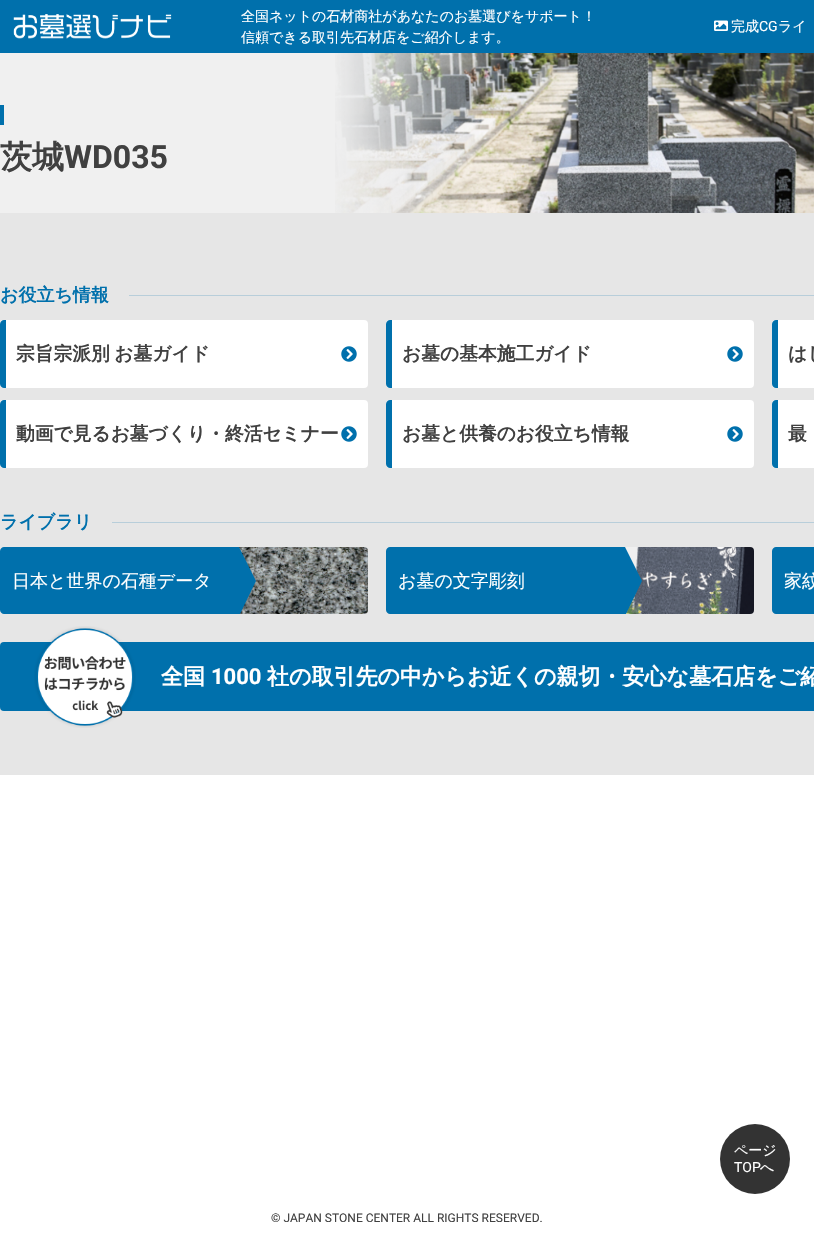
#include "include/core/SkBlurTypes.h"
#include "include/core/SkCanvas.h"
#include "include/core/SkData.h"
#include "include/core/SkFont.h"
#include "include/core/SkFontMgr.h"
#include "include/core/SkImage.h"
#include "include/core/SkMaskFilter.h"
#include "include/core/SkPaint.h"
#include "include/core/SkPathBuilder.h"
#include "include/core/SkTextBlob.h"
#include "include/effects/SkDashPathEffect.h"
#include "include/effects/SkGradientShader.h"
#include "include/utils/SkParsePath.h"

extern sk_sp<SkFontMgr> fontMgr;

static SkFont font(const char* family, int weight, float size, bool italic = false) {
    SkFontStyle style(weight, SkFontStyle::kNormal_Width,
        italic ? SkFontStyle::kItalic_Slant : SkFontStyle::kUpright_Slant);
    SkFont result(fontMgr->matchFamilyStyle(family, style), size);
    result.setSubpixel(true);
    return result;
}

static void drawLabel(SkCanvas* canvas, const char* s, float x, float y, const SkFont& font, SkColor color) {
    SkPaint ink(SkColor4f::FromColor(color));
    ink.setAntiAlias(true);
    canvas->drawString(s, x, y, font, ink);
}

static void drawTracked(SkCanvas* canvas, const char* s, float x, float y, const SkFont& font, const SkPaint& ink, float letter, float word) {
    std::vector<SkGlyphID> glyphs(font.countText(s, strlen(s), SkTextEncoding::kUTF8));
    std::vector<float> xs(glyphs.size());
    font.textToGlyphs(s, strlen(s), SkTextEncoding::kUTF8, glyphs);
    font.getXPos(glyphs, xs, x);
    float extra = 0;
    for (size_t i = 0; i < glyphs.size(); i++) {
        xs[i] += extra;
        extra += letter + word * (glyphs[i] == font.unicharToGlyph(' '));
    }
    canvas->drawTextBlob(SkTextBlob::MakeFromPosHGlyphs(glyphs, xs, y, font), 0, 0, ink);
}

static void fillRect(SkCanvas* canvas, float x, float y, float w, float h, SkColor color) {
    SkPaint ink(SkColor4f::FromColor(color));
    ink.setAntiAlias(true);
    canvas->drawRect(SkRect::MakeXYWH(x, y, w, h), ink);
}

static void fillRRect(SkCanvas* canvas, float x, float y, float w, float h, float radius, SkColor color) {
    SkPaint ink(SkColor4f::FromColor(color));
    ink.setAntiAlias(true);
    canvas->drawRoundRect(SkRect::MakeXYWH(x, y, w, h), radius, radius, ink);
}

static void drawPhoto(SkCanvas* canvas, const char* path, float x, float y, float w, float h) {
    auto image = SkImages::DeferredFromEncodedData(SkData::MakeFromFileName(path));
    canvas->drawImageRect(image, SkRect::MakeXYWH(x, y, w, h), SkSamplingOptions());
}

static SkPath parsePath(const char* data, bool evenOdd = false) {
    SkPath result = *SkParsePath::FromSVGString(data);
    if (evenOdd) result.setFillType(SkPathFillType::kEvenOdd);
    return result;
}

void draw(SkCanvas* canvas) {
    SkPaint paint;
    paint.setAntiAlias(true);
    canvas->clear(0xFFFFFFFF);
    fillRect(canvas, 0, 0, 814, 53, 0xFF0070AC);
    drawPhoto(canvas, "assets/img1.png", 13, 14, 159, 25);
    SkFont font1 = font("WenQuanYi Zen Hei", 500, 14);
    drawLabel(canvas, "全国ネットの石材商社があなたのお墓選びをサポート！", 241, 21, font1, 0xFFFFFFFF);
    drawLabel(canvas, "信頼できる取引先石材店をご紹介します。", 241, 42, font1, 0xFFFFFFFF);
    drawPhoto(canvas, "assets/img2.png", 714, 20, 14, 11);
    drawLabel(canvas, "完成", 731, 31, font1, 0xFFFFFFFF);
    SkFont font2 = font("Roboto", 400, 14);
    drawLabel(canvas, "CG", 759, 31, font2, 0xFFFFFFFF);
    drawLabel(canvas, "ライ", 778, 31, font1, 0xFFFFFFFF);
    fillRect(canvas, 0, 53, 814, 160, 0xFFF0F0F0);
    drawPhoto(canvas, "assets/img3.png", 335, 53, 479, 160);
    fillRect(canvas, 0, 105, 4, 20, 0xFF0070AC);
    SkFont font3 = font("WenQuanYi Zen Hei", 700, 32);
    drawLabel(canvas, "茨城", 0, 168, font3, 0xFF404040);
    SkFont font4 = font("Roboto", 700, 32);
    drawLabel(canvas, "WD035", 64, 168, font4, 0xFF404040);
    fillRect(canvas, 0, 213, 814, 562, 0xFFE6E6E6);
    SkFont font5 = font("WenQuanYi Zen Hei", 700, 18);
    drawLabel(canvas, "お役立ち情報", 0, 301, font5, 0xFF0070AC);
    fillRect(canvas, 129, 295, 685, 1, 0xFFB8CEDA);
    fillRRect(canvas, 0, 320, 368, 68, 4, 0xFFFFFFFF);
    paint.setColor(0xFF0070AC);
    canvas->drawPath(parsePath("M4 320H6V388H4C2 388 0 386 0 384V324C0 322 2 320 4 320Z"), paint);
    SkFont font6 = font("WenQuanYi Zen Hei", 700, 18.75f);
    paint.setColor(0xFF404040);
    drawTracked(canvas, "宗旨宗派別 お墓ガイド", 16, 360, font6, paint, 0, -1);
    drawPhoto(canvas, "assets/img4.png", 341, 346, 16, 16);
    fillRRect(canvas, 386, 320, 368, 68, 4, 0xFFFFFFFF);
    paint.setColor(0xFF0070AC);
    canvas->drawPath(parsePath("M390 320H392V388H390C388 388 386 386 386 384V324C386 322 388 320 390 320Z"), paint);
    drawLabel(canvas, "お墓の基本施工ガイド", 402, 360, font6, 0xFF404040);
    drawPhoto(canvas, "assets/img4.png", 727, 346, 16, 16);
    fillRRect(canvas, 772, 320, 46, 68, 4, 0xFFFFFFFF);
    canvas->drawPath(parsePath("M776 320H778V388H776C774 388 772 386 772 384V324C772 322 774 320 776 320Z"), paint);
    drawLabel(canvas, "はじ", 788, 360, font6, 0xFF404040);
    fillRRect(canvas, 0, 400, 368, 68, 4, 0xFFFFFFFF);
    canvas->drawPath(parsePath("M4 400H6V468H4C2 468 0 466 0 464V404C0 402 2 400 4 400Z"), paint);
    drawLabel(canvas, "動画で見るお墓づくり・終活セミナー", 16, 440, font6, 0xFF404040);
    drawPhoto(canvas, "assets/img4.png", 341, 426, 16, 16);
    fillRRect(canvas, 386, 400, 368, 68, 4, 0xFFFFFFFF);
    canvas->drawPath(parsePath("M390 400H392V468H390C388 468 386 466 386 464V404C386 402 388 400 390 400Z"), paint);
    drawLabel(canvas, "お墓と供養のお役立ち情報", 402, 440, font6, 0xFF404040);
    drawPhoto(canvas, "assets/img4.png", 727, 426, 16, 16);
    fillRRect(canvas, 772, 400, 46, 68, 4, 0xFFFFFFFF);
    canvas->drawPath(parsePath("M776 400H778V468H776C774 468 772 466 772 464V404C772 402 774 400 776 400Z"), paint);
    drawLabel(canvas, "最", 788, 440, font6, 0xFF404040);
    drawLabel(canvas, "ライブラリ", 0, 528, font5, 0xFF0070AC);
    fillRect(canvas, 112, 522, 702, 1, 0xFFB8CEDA);
    drawPhoto(canvas, "assets/img5.png", 239, 547, 129, 67);
    canvas->drawPath(parsePath("M4 547H236V614H4C2 614 0 612 0 610V551C0 549 2 547 4 547Z"), paint);
    SkFont font7 = font("WenQuanYi Zen Hei", 500, 18);
    drawLabel(canvas, "日本と世界の石種データ", 12, 587, font7, 0xFFFFFFFF);
    canvas->drawPath(parsePath("M239 547L256 581L240 614H236V547Z"), paint);
    drawPhoto(canvas, "assets/img6.png", 625, 547, 129, 67);
    canvas->drawPath(parsePath("M390 547H622V614H390C388 614 386 612 386 610V551C386 549 388 547 390 547Z"), paint);
    drawLabel(canvas, "お墓の文字彫刻", 398, 587, font7, 0xFFFFFFFF);
    canvas->drawPath(parsePath("M625 547L642 581L626 614H622V547Z"), paint);
    canvas->drawPath(parsePath("M776 547H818V614H776C774 614 772 612 772 610V551C772 549 774 547 776 547Z"), paint);
    drawLabel(canvas, "家紋", 784, 587, font7, 0xFFFFFFFF);
    fillRRect(canvas, 0, 642, 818, 69, 4, 0xFF0070AC);
    drawPhoto(canvas, "assets/img7.png", 34, 626, 102, 102);
    SkFont font8 = font("WenQuanYi Zen Hei", 700, 22);
    drawLabel(canvas, "全国", 161, 684, font8, 0xFFFFFFFF);
    SkFont font9 = font("Roboto", 700, 22);
    drawLabel(canvas, "1000", 211, 684, font9, 0xFFFFFFFF);
    drawLabel(canvas, "社の取引先の中からお近くの親切・安心な墓石店をご紹", 267, 684, font8, 0xFFFFFFFF);
    paint.setColor(0xFF333333);
    canvas->drawCircle(755, 1159, 35, paint);
    drawLabel(canvas, "ページ", 734, 1155, font1, 0xFFFFFFFF);
    drawLabel(canvas, "TOP", 734, 1172, font2, 0xFFFFFFFF);
    drawLabel(canvas, "へ", 760, 1172, font1, 0xFFFFFFFF);
    SkFont font10 = font("Roboto", 400, 12);
    drawLabel(canvas, "© JAPAN STONE CENTER ALL RIGHTS RESERVED.", 271, 1222, font10, 0xFF404040);
}
